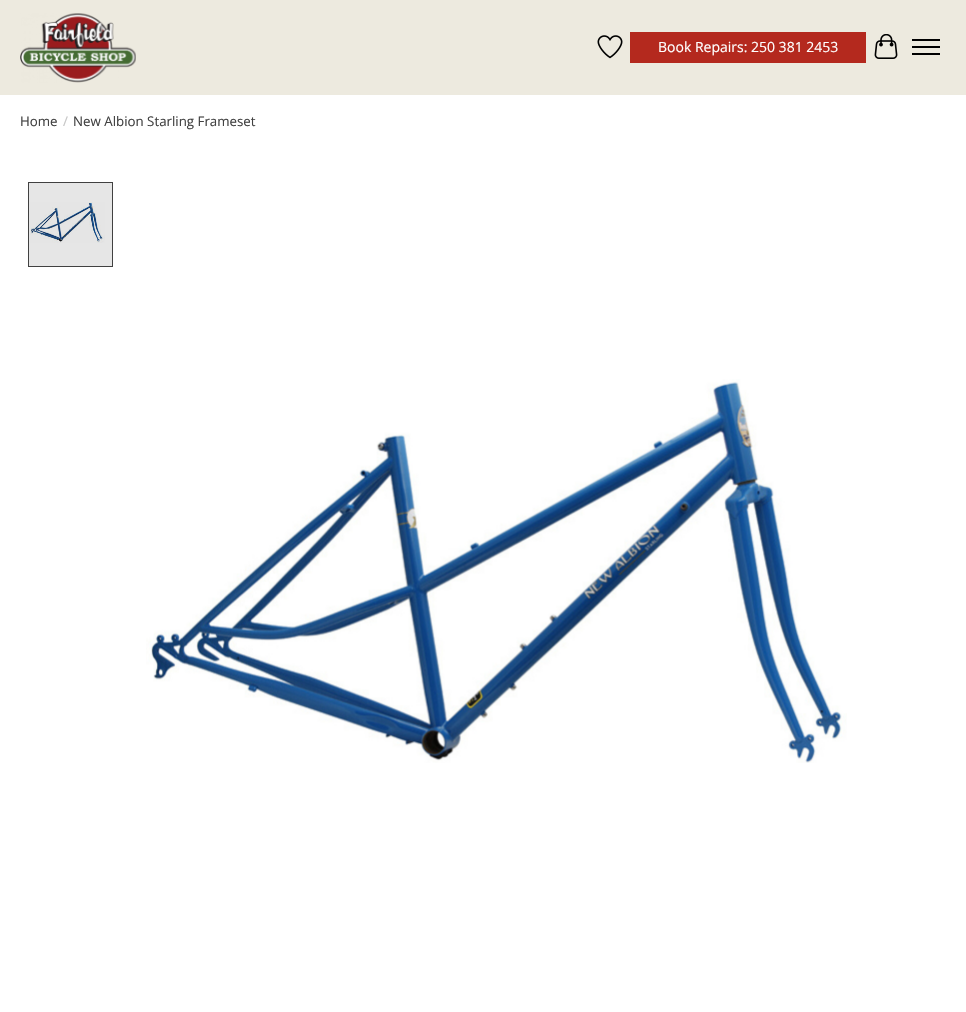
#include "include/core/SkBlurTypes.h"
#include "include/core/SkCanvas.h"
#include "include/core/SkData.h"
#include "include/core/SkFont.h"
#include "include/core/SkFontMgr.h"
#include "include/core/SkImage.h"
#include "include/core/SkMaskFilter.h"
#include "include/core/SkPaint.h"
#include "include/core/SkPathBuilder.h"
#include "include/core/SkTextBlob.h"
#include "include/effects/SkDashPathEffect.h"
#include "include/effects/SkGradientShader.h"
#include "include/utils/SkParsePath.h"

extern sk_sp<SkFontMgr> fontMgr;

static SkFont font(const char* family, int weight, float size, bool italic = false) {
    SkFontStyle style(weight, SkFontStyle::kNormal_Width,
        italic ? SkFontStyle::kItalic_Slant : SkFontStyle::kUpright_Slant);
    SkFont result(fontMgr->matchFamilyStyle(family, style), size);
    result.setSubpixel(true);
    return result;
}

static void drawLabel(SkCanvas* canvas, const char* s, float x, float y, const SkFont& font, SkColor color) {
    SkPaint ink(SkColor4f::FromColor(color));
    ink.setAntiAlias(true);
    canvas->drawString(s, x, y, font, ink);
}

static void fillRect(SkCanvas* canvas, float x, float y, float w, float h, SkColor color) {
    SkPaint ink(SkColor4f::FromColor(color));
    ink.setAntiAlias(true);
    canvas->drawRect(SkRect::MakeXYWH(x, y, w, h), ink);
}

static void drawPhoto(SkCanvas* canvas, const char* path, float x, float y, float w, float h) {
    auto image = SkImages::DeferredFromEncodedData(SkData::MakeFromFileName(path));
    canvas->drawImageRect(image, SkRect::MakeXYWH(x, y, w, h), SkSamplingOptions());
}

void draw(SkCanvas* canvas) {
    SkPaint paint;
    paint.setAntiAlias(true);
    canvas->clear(0xFFFFFFFF);
    fillRect(canvas, 29, 183, 83, 83, 0xFFE6E6E6);
    fillRect(canvas, 0, 0, 966, 95, 0xFFEDEADF);
    drawPhoto(canvas, "assets/img1.png", 20, 13, 116, 70);
    drawPhoto(canvas, "assets/img2.png", 597, 35, 26, 24);
    fillRect(canvas, 630, 32, 236, 31, 0xFFB4291E);
    SkFont font1 = font("Open Sans", 400, 14);
    drawLabel(canvas, "Book Repairs: 250 381 2453", 658, 52, font1, 0xFFFFFFFF);
    drawPhoto(canvas, "assets/img3.png", 874, 34, 24, 25);
    fillRect(canvas, 912, 46, 28, 2, 0xFF000000);
    fillRect(canvas, 912, 39, 28, 2, 0xFF000000);
    fillRect(canvas, 912, 53, 28, 2, 0xFF000000);
    SkFont font2 = font("Open Sans", 400, 13.3f);
    drawLabel(canvas, "Home", 20, 126, font2, 0xFF414141);
    drawLabel(canvas, "/", 63, 126, font2, 0xFFC6C6C6);
    drawLabel(canvas, "New Albion Starling Frameset", 73, 126, font2, 0xFF414141);
    drawPhoto(canvas, "assets/img4.png", 30, 202, 75, 41);
    paint.setStroke(true);
    paint.setStrokeWidth(1);
    paint.setColor(0xFF414141);
    canvas->drawRect(SkRect::MakeXYWH(28.5f, 182.5f, 84, 84), paint);
    drawPhoto(canvas, "assets/img5.png", 146, 379, 701, 384);
}
